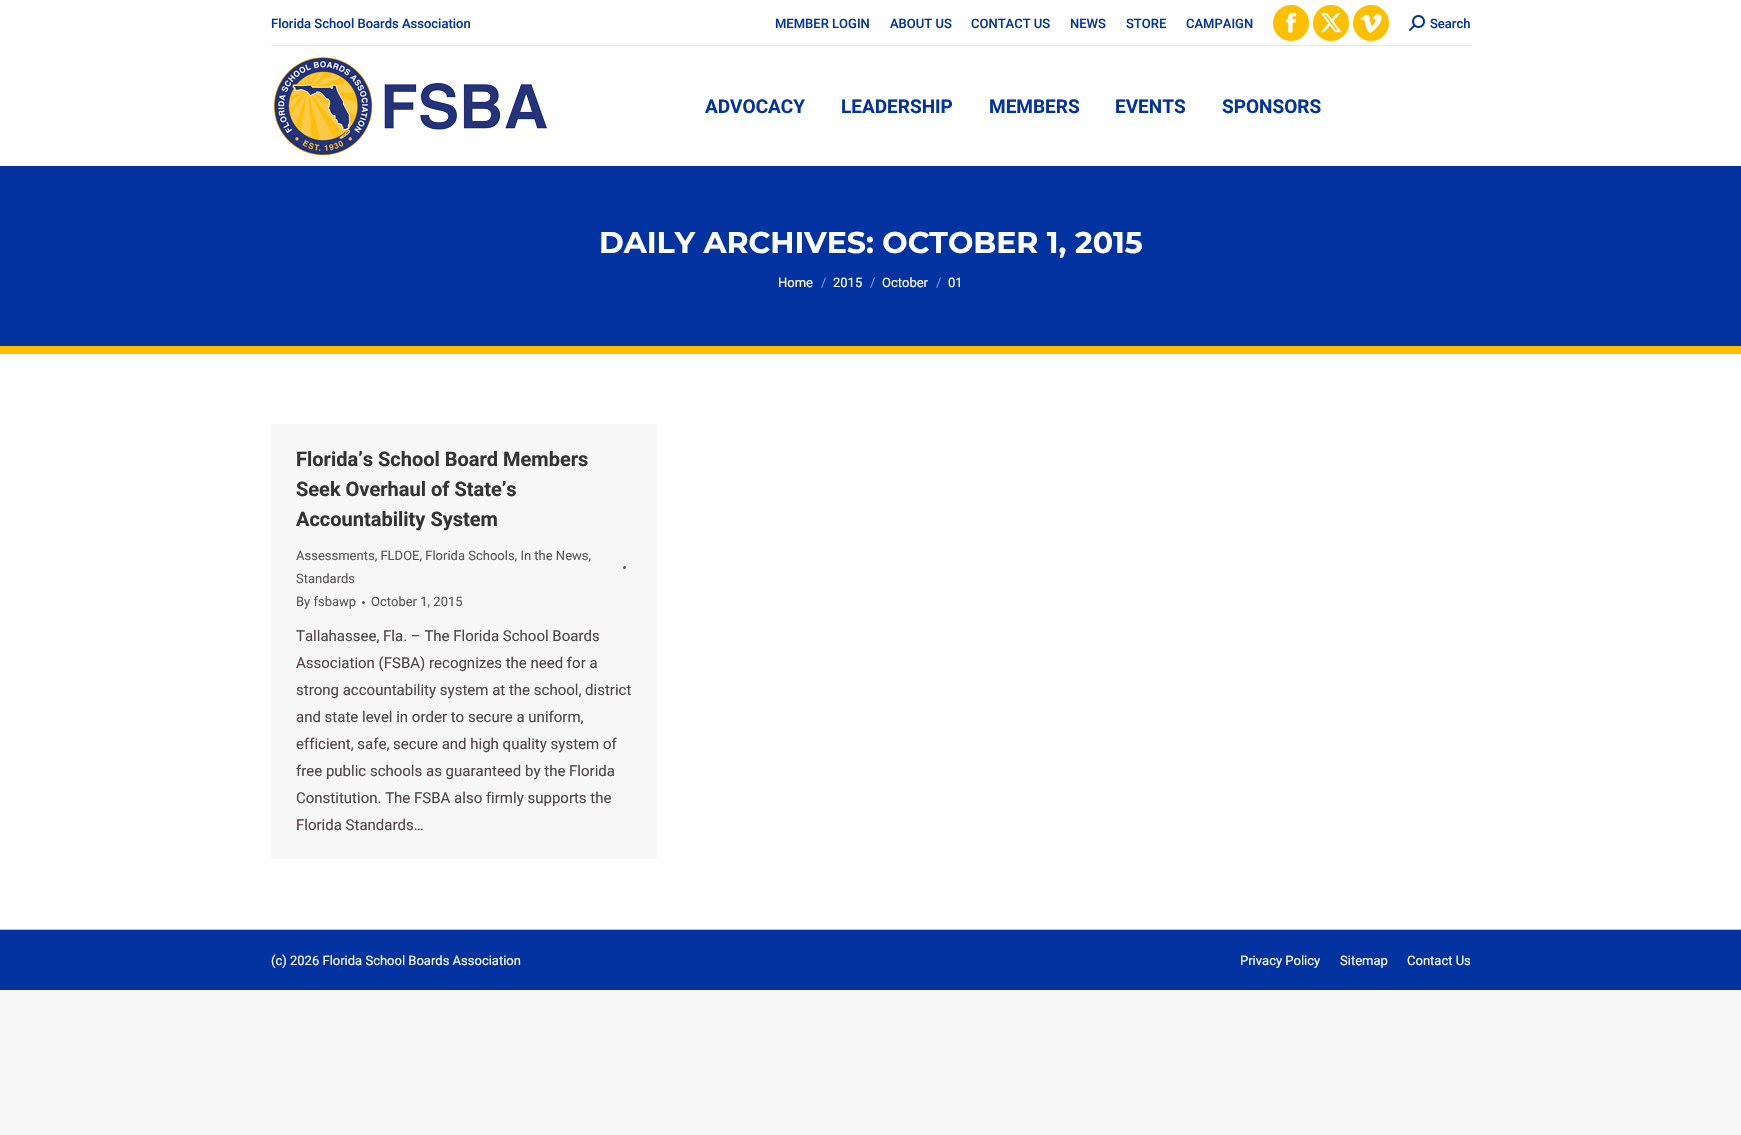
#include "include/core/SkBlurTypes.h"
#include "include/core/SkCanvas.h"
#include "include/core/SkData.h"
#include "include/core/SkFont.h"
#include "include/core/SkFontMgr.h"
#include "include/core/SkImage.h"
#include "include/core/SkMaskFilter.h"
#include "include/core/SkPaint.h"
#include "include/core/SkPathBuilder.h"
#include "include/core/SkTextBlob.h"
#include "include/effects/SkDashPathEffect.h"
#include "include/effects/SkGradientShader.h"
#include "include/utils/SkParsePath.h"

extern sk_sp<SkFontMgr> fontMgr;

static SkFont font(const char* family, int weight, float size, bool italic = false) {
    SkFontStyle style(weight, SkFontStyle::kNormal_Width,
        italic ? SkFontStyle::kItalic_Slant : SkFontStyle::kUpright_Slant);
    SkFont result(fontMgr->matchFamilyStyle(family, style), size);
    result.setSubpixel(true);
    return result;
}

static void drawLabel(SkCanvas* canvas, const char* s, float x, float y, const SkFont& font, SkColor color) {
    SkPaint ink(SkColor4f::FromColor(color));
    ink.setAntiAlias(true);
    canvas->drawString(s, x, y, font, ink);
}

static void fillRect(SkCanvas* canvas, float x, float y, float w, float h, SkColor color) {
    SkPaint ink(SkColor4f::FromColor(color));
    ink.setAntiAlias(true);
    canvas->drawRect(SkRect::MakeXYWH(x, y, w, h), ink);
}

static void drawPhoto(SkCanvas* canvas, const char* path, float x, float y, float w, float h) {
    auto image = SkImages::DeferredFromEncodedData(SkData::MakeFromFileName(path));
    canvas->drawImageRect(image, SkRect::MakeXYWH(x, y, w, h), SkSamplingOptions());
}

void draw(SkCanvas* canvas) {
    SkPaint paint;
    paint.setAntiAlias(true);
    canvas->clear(0xFFF7F7F7);
    fillRect(canvas, 0, 0, 1741, 929, 0xFFFFFFFF);
    SkFont font1 = font("Roboto", 500, 13);
    drawLabel(canvas, "Florida School Boards Association", 271, 28, font1, 0xFF0333A1);
    drawLabel(canvas, "MEMBER LOGIN", 775, 28, font1, 0xFF0333A1);
    drawLabel(canvas, "ABOUT US", 890, 28, font1, 0xFF0333A1);
    drawLabel(canvas, "CONTACT US", 971, 28, font1, 0xFF0333A1);
    drawLabel(canvas, "NEWS", 1070, 28, font1, 0xFF0333A1);
    drawLabel(canvas, "STORE", 1126, 28, font1, 0xFF0333A1);
    drawLabel(canvas, "CAMPAIGN", 1186, 28, font1, 0xFF0333A1);
    paint.setColor(0xFFFDC000);
    canvas->drawCircle(1291, 23, 18, paint);
    drawPhoto(canvas, "assets/img1.png", 1286, 12, 10, 21);
    canvas->drawCircle(1331, 23, 18, paint);
    drawPhoto(canvas, "assets/img2.png", 1320, 13, 22, 20);
    canvas->drawCircle(1371, 23, 18, paint);
    drawPhoto(canvas, "assets/img3.png", 1360, 14, 22, 19);
    drawPhoto(canvas, "assets/img4.png", 1409, 15, 16, 16);
    drawLabel(canvas, "Search", 1430, 28, font1, 0xFF0333A1);
    fillRect(canvas, 271, 45, 1200, 1, 0xFFE7E7E7);
    drawPhoto(canvas, "assets/img5.png", 273, 57, 275, 99);
    SkFont font2 = font("Roboto", 700, 19);
    drawLabel(canvas, "ADVOCACY", 705, 113, font2, 0xFF0333A1);
    drawLabel(canvas, "LEADERSHIP", 841, 113, font2, 0xFF0333A1);
    drawLabel(canvas, "MEMBERS", 989, 113, font2, 0xFF0333A1);
    drawLabel(canvas, "EVENTS", 1115, 113, font2, 0xFF0333A1);
    drawLabel(canvas, "SPONSORS", 1222, 113, font2, 0xFF0333A1);
    fillRect(canvas, 0, 166, 1741, 180, 0xFF0333A1);
    fillRect(canvas, 0, 346, 1741, 8, 0xFFFDC000);
    SkFont font3 = font("Montserrat", 700, 30);
    drawLabel(canvas, "DAILY ARCHIVES: OCTOBER 1, 2015", 599, 253, font3, 0xFFFFFFFF);
    SkFont font4 = font("Roboto", 400, 13);
    drawLabel(canvas, "Home", 778, 287, font4, 0xFFFFFFFF);
    drawLabel(canvas, "/", 821, 287, font4, 0xFF8199D0);
    drawLabel(canvas, "2015", 833, 287, font4, 0xFFFFFFFF);
    drawLabel(canvas, "/", 870, 287, font4, 0xFF8199D0);
    drawLabel(canvas, "October", 882, 287, font4, 0xFFFFFFFF);
    drawLabel(canvas, "/", 936, 287, font4, 0xFF8199D0);
    drawLabel(canvas, "01", 948, 287, font4, 0xFFFFFFFF);
    fillRect(canvas, 271, 424, 386, 435, 0xFFF7F7F7);
    SkFont font5 = font("Roboto", 700, 20);
    drawLabel(canvas, "Florida’s School Board Members", 296, 466, font5, 0xFF333333);
    drawLabel(canvas, "Seek Overhaul of State’s", 296, 496, font5, 0xFF333333);
    drawLabel(canvas, "Accountability System", 296, 526, font5, 0xFF333333);
    drawLabel(canvas, "Assessments, FLDOE, Florida Schools, In the News,", 296, 560, font4, 0xFF595656);
    paint.setColor(0xFF595656);
    canvas->drawCircle(624.5f, 567.5f, 1.5f, paint);
    drawLabel(canvas, "Standards", 296, 583, font4, 0xFF595656);
    drawLabel(canvas, "By fsbawp", 296, 606, font4, 0xFF595656);
    canvas->drawCircle(363.5f, 602.5f, 1.5f, paint);
    drawLabel(canvas, "October 1, 2015", 371, 606, font4, 0xFF595656);
    SkFont font6 = font("Roboto", 400, 15);
    drawLabel(canvas, "Tallahassee, Fla. – The Florida School Boards", 296, 641, font6, 0xFF4F4646);
    drawLabel(canvas, "Association (FSBA) recognizes the need for a", 296, 668, font6, 0xFF4F4646);
    drawLabel(canvas, "strong accountability system at the school, district", 296, 695, font6, 0xFF4F4646);
    drawLabel(canvas, "and state level in order to secure a uniform,", 296, 722, font6, 0xFF4F4646);
    drawLabel(canvas, "efficient, safe, secure and high quality system of", 296, 749, font6, 0xFF4F4646);
    drawLabel(canvas, "free public schools as guaranteed by the Florida", 296, 776, font6, 0xFF4F4646);
    drawLabel(canvas, "Constitution. The FSBA also firmly supports the", 296, 803, font6, 0xFF4F4646);
    drawLabel(canvas, "Florida Standards…", 296, 830, font6, 0xFF4F4646);
    fillRect(canvas, 0, 930, 1741, 60, 0xFF0333A1);
    fillRect(canvas, 0, 929, 1741, 1, 0xFFFDC000);
    drawLabel(canvas, "(c) 2026 Florida School Boards Association", 271, 965, font4, 0xFFFFFFFF);
    drawLabel(canvas, "Privacy Policy", 1240, 965, font4, 0xFFFFFFFF);
    drawLabel(canvas, "Sitemap", 1340, 965, font4, 0xFFFFFFFF);
    drawLabel(canvas, "Contact Us", 1407, 965, font4, 0xFFFFFFFF);
}
